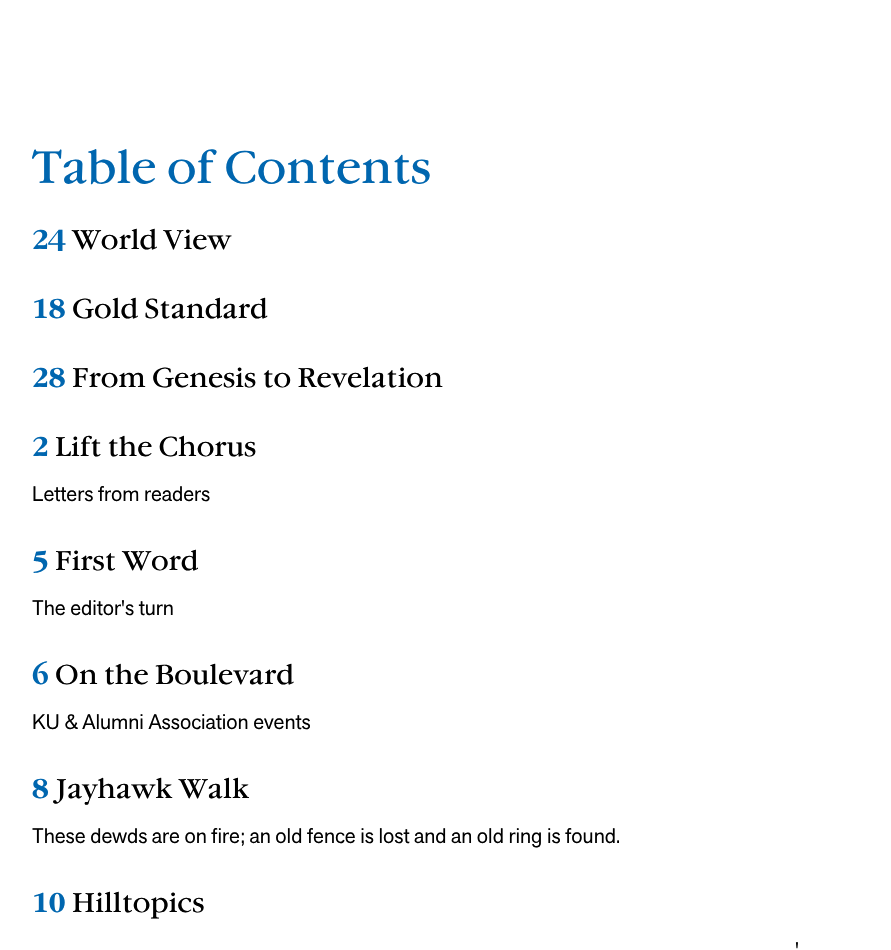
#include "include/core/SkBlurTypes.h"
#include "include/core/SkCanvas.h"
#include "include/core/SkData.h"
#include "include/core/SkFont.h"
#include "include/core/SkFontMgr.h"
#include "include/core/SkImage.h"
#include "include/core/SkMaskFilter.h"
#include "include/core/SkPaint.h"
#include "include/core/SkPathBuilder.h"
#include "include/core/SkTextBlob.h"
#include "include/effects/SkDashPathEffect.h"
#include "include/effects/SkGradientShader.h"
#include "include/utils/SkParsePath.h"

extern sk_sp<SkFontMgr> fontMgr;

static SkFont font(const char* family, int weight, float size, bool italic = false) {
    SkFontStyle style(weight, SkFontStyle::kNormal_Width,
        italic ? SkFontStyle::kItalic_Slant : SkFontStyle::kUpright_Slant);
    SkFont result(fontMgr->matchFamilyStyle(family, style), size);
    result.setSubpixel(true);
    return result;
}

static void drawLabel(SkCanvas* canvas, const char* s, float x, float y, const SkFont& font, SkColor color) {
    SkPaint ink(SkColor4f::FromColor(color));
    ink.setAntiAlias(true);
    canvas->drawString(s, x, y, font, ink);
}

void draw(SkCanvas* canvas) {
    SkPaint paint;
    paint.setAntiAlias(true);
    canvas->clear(0xFFFFFFFF);
    SkFont font1 = font("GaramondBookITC", 400, 45);
    drawLabel(canvas, "Table of Contents", 32, 183, font1, 0xFF0066AF);
    SkFont font2 = font("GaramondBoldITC", 700, 27);
    drawLabel(canvas, "24", 32, 249, font2, 0xFF0066AF);
    SkFont font3 = font("GaramondBookITC", 400, 27);
    drawLabel(canvas, "World View", 72, 249, font3, 0xFF000000);
    drawLabel(canvas, "18", 32, 318, font2, 0xFF0066AF);
    drawLabel(canvas, "Gold Standard", 72, 318, font3, 0xFF000000);
    drawLabel(canvas, "28", 32, 387, font2, 0xFF0066AF);
    drawLabel(canvas, "From Genesis to Revelation", 72, 387, font3, 0xFF000000);
    drawLabel(canvas, "2", 32, 456, font2, 0xFF0066AF);
    drawLabel(canvas, "Lift the Chorus", 55, 456, font3, 0xFF000000);
    SkFont font4 = font("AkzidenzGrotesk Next", 400, 21);
    drawLabel(canvas, "Letters from readers", 32, 501, font4, 0xFF000000);
    drawLabel(canvas, "5", 32, 570, font2, 0xFF0066AF);
    drawLabel(canvas, "First Word", 55, 570, font3, 0xFF000000);
    drawLabel(canvas, "The editor's turn", 32, 615, font4, 0xFF000000);
    drawLabel(canvas, "6", 32, 684, font2, 0xFF0066AF);
    drawLabel(canvas, "On the Boulevard", 55, 684, font3, 0xFF000000);
    drawLabel(canvas, "KU & Alumni Association events", 32, 729, font4, 0xFF000000);
    drawLabel(canvas, "8", 32, 798, font2, 0xFF0066AF);
    drawLabel(canvas, "Jayhawk Walk", 55, 798, font3, 0xFF000000);
    drawLabel(canvas, "These dewds are on fire; an old fence is lost and an old ring is found.", 32, 843, font4, 0xFF000000);
    drawLabel(canvas, "10", 32, 912, font2, 0xFF0066AF);
    drawLabel(canvas, "Hilltopics", 72, 912, font3, 0xFF000000);
    drawLabel(canvas, "'", 795, 957, font4, 0xFF000000);
}
